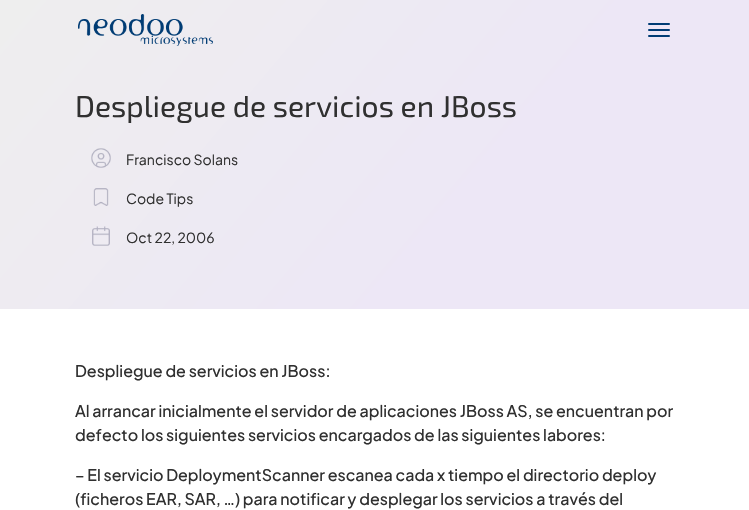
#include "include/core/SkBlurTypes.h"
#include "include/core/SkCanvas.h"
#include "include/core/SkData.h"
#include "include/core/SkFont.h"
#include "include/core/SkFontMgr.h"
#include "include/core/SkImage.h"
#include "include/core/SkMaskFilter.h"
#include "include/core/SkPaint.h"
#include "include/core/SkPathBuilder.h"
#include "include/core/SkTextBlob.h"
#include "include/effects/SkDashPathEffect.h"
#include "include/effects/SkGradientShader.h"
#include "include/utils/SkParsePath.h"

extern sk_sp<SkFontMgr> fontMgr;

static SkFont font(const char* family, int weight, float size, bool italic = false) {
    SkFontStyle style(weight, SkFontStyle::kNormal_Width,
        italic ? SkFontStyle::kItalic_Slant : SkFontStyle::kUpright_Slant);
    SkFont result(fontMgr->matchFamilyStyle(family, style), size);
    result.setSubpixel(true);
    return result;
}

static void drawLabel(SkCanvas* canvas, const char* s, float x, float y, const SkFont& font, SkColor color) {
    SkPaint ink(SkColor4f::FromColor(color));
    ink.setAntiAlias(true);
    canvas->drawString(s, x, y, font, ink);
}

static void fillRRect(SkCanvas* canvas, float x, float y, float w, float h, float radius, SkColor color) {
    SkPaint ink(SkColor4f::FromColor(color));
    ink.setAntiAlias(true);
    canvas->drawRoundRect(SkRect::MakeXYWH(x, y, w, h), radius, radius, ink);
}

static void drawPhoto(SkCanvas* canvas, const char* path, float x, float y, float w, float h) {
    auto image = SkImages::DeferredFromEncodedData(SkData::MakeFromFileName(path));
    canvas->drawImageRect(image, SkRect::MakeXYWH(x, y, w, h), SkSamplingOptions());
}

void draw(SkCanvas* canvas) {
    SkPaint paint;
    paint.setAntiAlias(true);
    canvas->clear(0xFFFFFFFF);
    {
        const SkColor colors[] = {0xFFEEEEEE, 0xFFEDE7F6};
        const float stops[] = {0, 0.65f};
        const SkPoint ends[] = {{79, -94}, {670, 403}};
        paint.setShader(SkGradientShader::MakeLinear(ends, colors, stops, 2, SkTileMode::kClamp));
        paint.setAlpha(255);
    }
    canvas->drawRect(SkRect::MakeXYWH(0, 0, 749, 309), paint);
    drawPhoto(canvas, "assets/img1.png", 78, 14, 135, 32);
    fillRRect(canvas, 648, 23, 22, 2, 1, 0xFF003C75);
    fillRRect(canvas, 648, 29, 22, 2, 1, 0xFF003C75);
    fillRRect(canvas, 648, 35, 22, 2, 1, 0xFF003C75);
    SkFont font1 = font("Exo 2", 400, 30);
    drawLabel(canvas, "Despliegue de servicios en JBoss", 75, 117, font1, 0xFF303030);
    drawPhoto(canvas, "assets/img2.png", 91, 148, 20, 20);
    SkFont font2 = font("Plus Jakarta Sans", 400, 14);
    drawLabel(canvas, "Francisco Solans", 126, 165, font2, 0xFF303030);
    drawPhoto(canvas, "assets/img3.png", 93, 188, 16, 18);
    drawLabel(canvas, "Code Tips", 126, 204, font2, 0xFF303030);
    drawPhoto(canvas, "assets/img4.png", 92, 226, 18, 20);
    drawLabel(canvas, "Oct 22, 2006", 126, 243, font2, 0xFF303030);
    SkFont font3 = font("Plus Jakarta Sans", 500, 16);
    drawLabel(canvas, "Despliegue de servicios en JBoss:", 75, 377, font3, 0xFF303030);
    drawLabel(canvas, "Al arrancar inicialmente el servidor de aplicaciones JBoss AS, se encuentran por", 75, 417, font3, 0xFF303030);
    drawLabel(canvas, "defecto los siguientes servicios encargados de las siguientes labores:", 75, 441, font3, 0xFF303030);
    drawLabel(canvas, "– El servicio DeploymentScanner escanea cada x tiempo el directorio deploy", 75, 481, font3, 0xFF303030);
    drawLabel(canvas, "(ficheros EAR, SAR, …) para notificar y desplegar los servicios a través del", 75, 505, font3, 0xFF303030);
}
